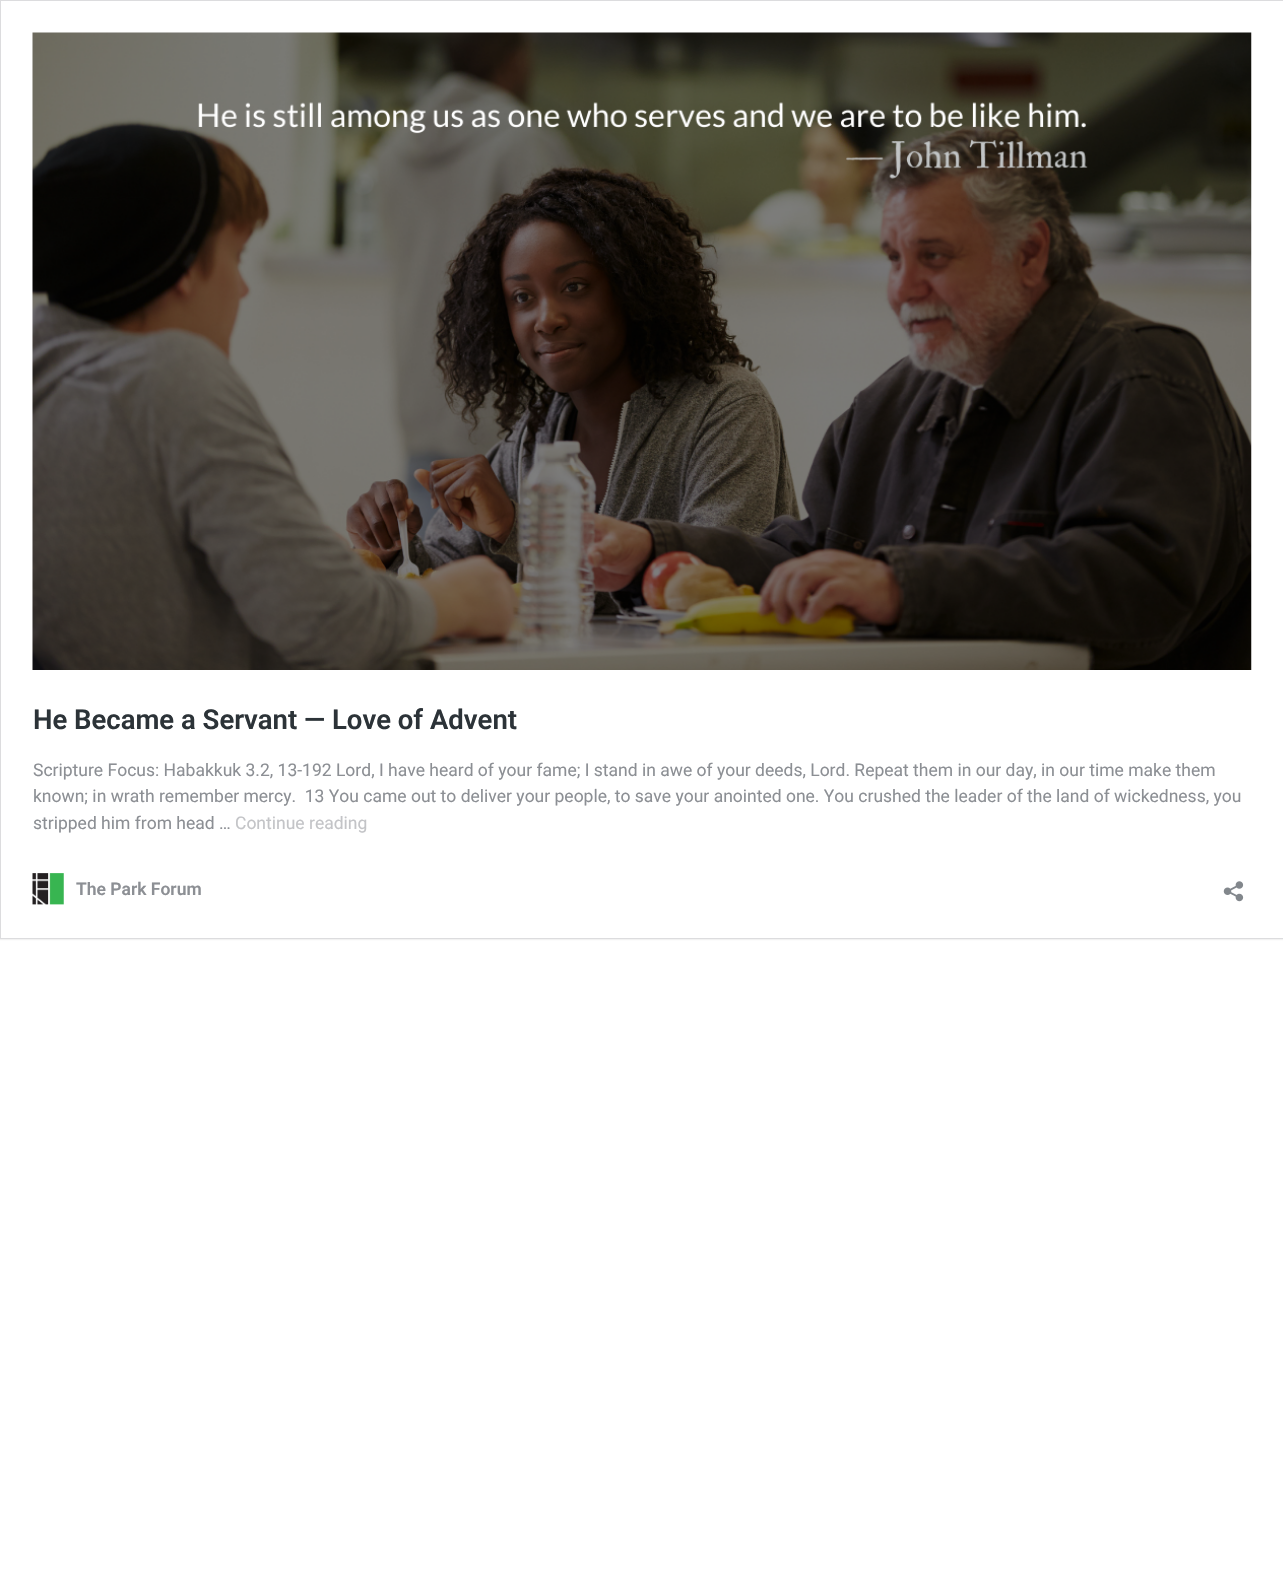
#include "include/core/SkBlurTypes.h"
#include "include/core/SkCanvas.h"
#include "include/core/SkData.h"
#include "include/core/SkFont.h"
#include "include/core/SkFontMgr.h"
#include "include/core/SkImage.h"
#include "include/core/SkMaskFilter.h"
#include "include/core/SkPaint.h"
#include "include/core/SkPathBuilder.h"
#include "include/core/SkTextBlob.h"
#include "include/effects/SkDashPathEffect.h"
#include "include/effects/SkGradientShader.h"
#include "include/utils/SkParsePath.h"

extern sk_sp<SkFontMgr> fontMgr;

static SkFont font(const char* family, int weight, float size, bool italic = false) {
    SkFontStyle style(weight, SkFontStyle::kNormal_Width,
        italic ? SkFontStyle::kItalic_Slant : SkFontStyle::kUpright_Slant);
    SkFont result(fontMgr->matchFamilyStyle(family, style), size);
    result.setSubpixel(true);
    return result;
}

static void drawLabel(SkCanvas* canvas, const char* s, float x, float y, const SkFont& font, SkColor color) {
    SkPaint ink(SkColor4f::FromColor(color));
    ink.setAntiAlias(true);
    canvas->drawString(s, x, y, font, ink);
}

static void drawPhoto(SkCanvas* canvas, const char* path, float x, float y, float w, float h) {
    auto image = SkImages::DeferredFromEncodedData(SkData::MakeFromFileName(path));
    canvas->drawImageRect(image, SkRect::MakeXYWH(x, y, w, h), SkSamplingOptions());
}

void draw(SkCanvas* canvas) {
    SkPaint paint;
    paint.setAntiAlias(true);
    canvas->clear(0xFFFFFFFF);
    paint.setColor(0x0D000000);
    paint.setMaskFilter(SkMaskFilter::MakeBlur(kNormal_SkBlurStyle, 0.5f));
    canvas->drawRect(SkRect::MakeXYWH(0, 1, 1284, 939), paint);
    paint.setMaskFilter(nullptr);
    paint.setColor(0xFFFFFFFF);
    canvas->drawRect(SkRect::MakeXYWH(0.5f, 0.5f, 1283, 938), paint);
    paint.setStroke(true);
    paint.setStrokeWidth(1);
    paint.setColor(0xFFDCDCDE);
    canvas->drawRect(SkRect::MakeXYWH(0.5f, 0.5f, 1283, 938), paint);
    drawPhoto(canvas, "assets/img1.png", 32, 32, 1220, 638);
    SkFont font1 = font("Roboto", 600, 27.5f);
    drawLabel(canvas, "He Became a Servant — Love of Advent", 33, 729, font1, 0xFF2C3338);
    SkFont font2 = font("Roboto", 400, 17.5f);
    drawLabel(canvas, "Scripture Focus: Habakkuk 3.2, 13-192 Lord, I have heard of your fame; I stand in awe of your deeds, Lord. Repeat them in our day, in our time make them", 33, 776, font2, 0xFF8C8F94);
    drawLabel(canvas, "known; in wrath remember mercy.  13 You came out to deliver your people, to save your anointed one. You crushed the leader of the land of wickedness, you", 33, 802, font2, 0xFF8C8F94);
    drawLabel(canvas, "stripped him from head …", 33, 829, font2, 0xFF8C8F94);
    drawLabel(canvas, "Continue reading", 235, 829, font2, 0xFFC3C4C7);
    drawPhoto(canvas, "assets/img2.png", 32, 873, 32, 32);
    SkFont font3 = font("Roboto", 600, 17.5f);
    drawLabel(canvas, "The Park Forum", 76, 895, font3, 0xFF8C8F94);
    drawPhoto(canvas, "assets/img3.png", 1223, 881, 21, 21);
}
